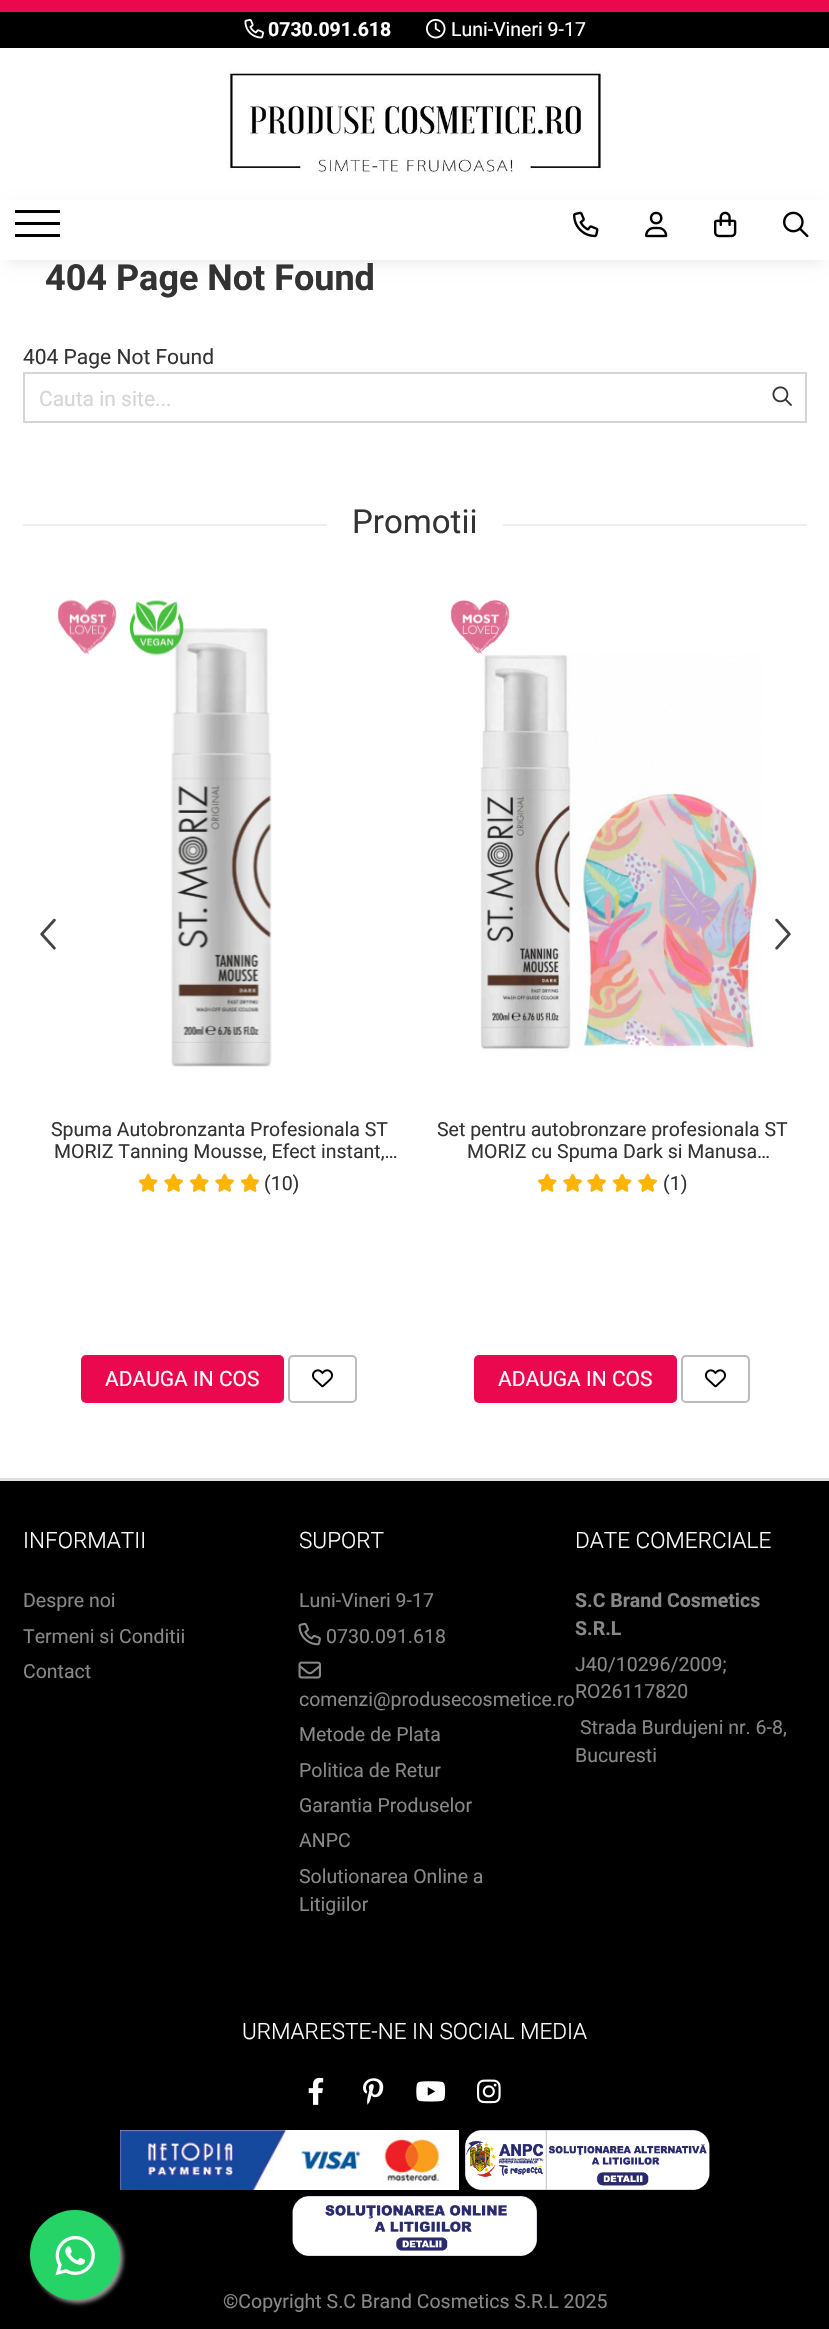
#include "include/core/SkBlurTypes.h"
#include "include/core/SkCanvas.h"
#include "include/core/SkData.h"
#include "include/core/SkFont.h"
#include "include/core/SkFontMgr.h"
#include "include/core/SkImage.h"
#include "include/core/SkMaskFilter.h"
#include "include/core/SkPaint.h"
#include "include/core/SkPathBuilder.h"
#include "include/core/SkTextBlob.h"
#include "include/effects/SkDashPathEffect.h"
#include "include/effects/SkGradientShader.h"
#include "include/utils/SkParsePath.h"

extern sk_sp<SkFontMgr> fontMgr;

static SkFont font(const char* family, int weight, float size, bool italic = false) {
    SkFontStyle style(weight, SkFontStyle::kNormal_Width,
        italic ? SkFontStyle::kItalic_Slant : SkFontStyle::kUpright_Slant);
    SkFont result(fontMgr->matchFamilyStyle(family, style), size);
    result.setSubpixel(true);
    return result;
}

static void drawLabel(SkCanvas* canvas, const char* s, float x, float y, const SkFont& font, SkColor color) {
    SkPaint ink(SkColor4f::FromColor(color));
    ink.setAntiAlias(true);
    canvas->drawString(s, x, y, font, ink);
}

static void fillRect(SkCanvas* canvas, float x, float y, float w, float h, SkColor color) {
    SkPaint ink(SkColor4f::FromColor(color));
    ink.setAntiAlias(true);
    canvas->drawRect(SkRect::MakeXYWH(x, y, w, h), ink);
}

static void fillRRect(SkCanvas* canvas, float x, float y, float w, float h, float radius, SkColor color) {
    SkPaint ink(SkColor4f::FromColor(color));
    ink.setAntiAlias(true);
    canvas->drawRoundRect(SkRect::MakeXYWH(x, y, w, h), radius, radius, ink);
}

static void drawPhoto(SkCanvas* canvas, const char* path, float x, float y, float w, float h) {
    auto image = SkImages::DeferredFromEncodedData(SkData::MakeFromFileName(path));
    canvas->drawImageRect(image, SkRect::MakeXYWH(x, y, w, h), SkSamplingOptions());
}

void draw(SkCanvas* canvas) {
    SkPaint paint;
    paint.setAntiAlias(true);
    canvas->clear(0xFFFFFFFF);
    fillRect(canvas, 0, 0, 829, 12, 0xFFEC084E);
    fillRect(canvas, 0, 12, 829, 36, 0xFF000000);
    drawPhoto(canvas, "assets/img1.png", 244, 18, 20, 21);
    SkFont font1 = font("Roboto", 700, 19.5f);
    drawLabel(canvas, "0730.091.618", 268, 36, font1, 0xFFFFFFFF);
    drawPhoto(canvas, "assets/img2.png", 426, 18, 20, 21);
    SkFont font2 = font("Roboto", 400, 19.5f);
    drawLabel(canvas, "Luni-Vineri 9-17", 451, 36, font2, 0xFFFFFFFF);
    drawPhoto(canvas, "assets/img3.png", 228, 70, 375, 103);
    paint.setColor(0x1F000000);
    paint.setMaskFilter(SkMaskFilter::MakeBlur(kNormal_SkBlurStyle, 7.5f));
    canvas->drawRect(SkRect::MakeXYWH(8, 210, 814, 50), paint);
    paint.setMaskFilter(nullptr);
    fillRect(canvas, 0, 200, 829, 60, 0xFFFFFFFF);
    fillRect(canvas, 15, 222, 45, 3, 0xFF000000);
    fillRect(canvas, 15, 210, 45, 3, 0xFF000000);
    fillRect(canvas, 15, 234, 45, 3, 0xFF000000);
    drawPhoto(canvas, "assets/img4.png", 573, 211, 26, 27);
    drawPhoto(canvas, "assets/img5.png", 645, 211, 23, 27);
    drawPhoto(canvas, "assets/img6.png", 714, 211, 23, 27);
    drawPhoto(canvas, "assets/img7.png", 783, 211, 26, 27);
    SkFont font3 = font("Roboto", 700, 36);
    drawLabel(canvas, "404 Page Not Found", 45, 290, font3, 0xFF333333);
    SkFont font4 = font("Roboto", 400, 21);
    drawLabel(canvas, "404 Page Not Found", 23, 364, font4, 0xFF333333);
    paint.setStroke(true);
    paint.setStrokeWidth(2);
    paint.setColor(0xFFD5D5D5);
    canvas->drawRect(SkRect::MakeXYWH(24, 373, 782, 49), paint);
    drawLabel(canvas, "Cauta in site...", 39, 406, font4, 0xFFD5D5D5);
    drawPhoto(canvas, "assets/img8.png", 772, 386, 20, 20);
    fillRect(canvas, 23, 524, 784, 2, 0xFFEEEEEE);
    fillRect(canvas, 327, 524, 176, 2, 0xFFFFFFFF);
    SkFont font5 = font("Roboto", 400, 33);
    drawLabel(canvas, "Promotii", 352, 533, font5, 0xFF333333);
    drawPhoto(canvas, "assets/img9.png", 40, 918, 16, 32);
    drawPhoto(canvas, "assets/img10.png", 775, 918, 16, 32);
    drawPhoto(canvas, "assets/img11.png", 171, 628, 101, 439);
    drawPhoto(canvas, "assets/img12.png", 57, 599, 60, 56);
    drawPhoto(canvas, "assets/img13.png", 129, 600, 55, 55);
    drawLabel(canvas, "Spuma Autobronzanta Profesionala ST", 51, 1136, font2, 0xFF333333);
    drawLabel(canvas, "MORIZ Tanning Mousse, Efect instant,…", 54, 1158, font2, 0xFF333333);
    drawPhoto(canvas, "assets/img17.png", 139, 1173, 19, 19);
    drawPhoto(canvas, "assets/img14.png", 138, 1173, 20, 19);
    drawPhoto(canvas, "assets/img18.png", 164, 1173, 19, 19);
    drawPhoto(canvas, "assets/img15.png", 164, 1173, 19, 19);
    drawPhoto(canvas, "assets/img17.png", 190, 1173, 19, 19);
    drawPhoto(canvas, "assets/img14.png", 189, 1173, 20, 19);
    drawPhoto(canvas, "assets/img18.png", 215, 1173, 19, 19);
    drawPhoto(canvas, "assets/img15.png", 215, 1173, 19, 19);
    drawPhoto(canvas, "assets/img17.png", 241, 1173, 19, 19);
    drawPhoto(canvas, "assets/img16.png", 240, 1173, 18, 19);
    drawLabel(canvas, "(10)", 264, 1190, font2, 0xFF333333);
    fillRRect(canvas, 81, 1355, 203, 48, 5, 0xFFEC084E);
    drawLabel(canvas, "ADAUGA IN COS", 105, 1386, font4, 0xFFFFFFFF);
    paint.setColor(0xFFBBBBBB);
    canvas->drawRoundRect(SkRect::MakeXYWH(289, 1356, 67, 46), 4, 4, paint);
    drawPhoto(canvas, "assets/img19.png", 312, 1369, 21, 19);
    drawPhoto(canvas, "assets/img20.png", 480, 654, 283, 398);
    drawPhoto(canvas, "assets/img21.png", 450, 599, 60, 55);
    drawLabel(canvas, "Set pentru autobronzare profesionala ST", 437, 1136, font2, 0xFF333333);
    drawLabel(canvas, "MORIZ cu Spuma Dark si Manusa…", 467, 1158, font2, 0xFF333333);
    drawPhoto(canvas, "assets/img17.png", 538, 1173, 19, 19);
    drawPhoto(canvas, "assets/img14.png", 537, 1173, 20, 19);
    drawPhoto(canvas, "assets/img18.png", 563, 1173, 19, 19);
    drawPhoto(canvas, "assets/img15.png", 563, 1173, 19, 19);
    drawPhoto(canvas, "assets/img18.png", 587, 1173, 19, 19);
    drawPhoto(canvas, "assets/img15.png", 587, 1173, 19, 19);
    drawPhoto(canvas, "assets/img17.png", 613, 1173, 19, 19);
    drawPhoto(canvas, "assets/img14.png", 612, 1173, 20, 19);
    drawPhoto(canvas, "assets/img18.png", 638, 1173, 19, 19);
    drawPhoto(canvas, "assets/img15.png", 638, 1173, 19, 19);
    drawLabel(canvas, "(1)", 663, 1190, font2, 0xFF333333);
    fillRRect(canvas, 474, 1355, 203, 48, 5, 0xFFEC084E);
    drawLabel(canvas, "ADAUGA IN COS", 498, 1386, font4, 0xFFFFFFFF);
    canvas->drawRoundRect(SkRect::MakeXYWH(682, 1356, 67, 46), 4, 4, paint);
    drawPhoto(canvas, "assets/img19.png", 705, 1369, 21, 19);
    fillRect(canvas, 0, 1478, 829, 3, 0xFFDFDFDF);
    fillRect(canvas, 0, 1481, 829, 848, 0xFF000000);
    SkFont font6 = font("Roboto", 300, 22.5f);
    drawLabel(canvas, "INFORMATII", 23, 1548, font6, 0xFFFFFFFF);
    drawLabel(canvas, "Despre noi", 23, 1607, font2, 0xFF888888);
    drawLabel(canvas, "Termeni si Conditii", 23, 1643, font2, 0xFF888888);
    drawLabel(canvas, "Contact", 23, 1678, font2, 0xFF888888);
    drawLabel(canvas, "SUPORT", 299, 1548, font6, 0xFFFFFFFF);
    drawLabel(canvas, "Luni-Vineri 9-17", 299, 1607, font2, 0xFF888888);
    drawPhoto(canvas, "assets/img22.png", 298, 1622, 23, 24);
    drawLabel(canvas, "0730.091.618", 326, 1643, font2, 0xFF888888);
    drawPhoto(canvas, "assets/img23.png", 298, 1661, 23, 18);
    drawLabel(canvas, "comenzi@produsecosmetice.ro", 299, 1706, font2, 0xFF888888);
    drawLabel(canvas, "Metode de Plata", 299, 1741, font2, 0xFF888888);
    drawLabel(canvas, "Politica de Retur", 299, 1777, font2, 0xFF888888);
    drawLabel(canvas, "Garantia Produselor", 299, 1812, font2, 0xFF888888);
    drawLabel(canvas, "ANPC", 299, 1847, font2, 0xFF888888);
    drawLabel(canvas, "Solutionarea Online a", 299, 1883, font2, 0xFF888888);
    drawLabel(canvas, "Litigiilor", 299, 1911, font2, 0xFF888888);
    drawLabel(canvas, "DATE COMERCIALE", 575, 1548, font6, 0xFFFFFFFF);
    drawLabel(canvas, "S.C Brand Cosmetics", 575, 1607, font1, 0xFF888888);
    drawLabel(canvas, "S.R.L", 575, 1635, font1, 0xFF888888);
    drawLabel(canvas, "J40/10296/2009;", 575, 1671, font2, 0xFF888888);
    drawLabel(canvas, "RO26117820", 575, 1698, font2, 0xFF888888);
    drawLabel(canvas, "Strada Burdujeni nr. 6-8,", 580, 1734, font2, 0xFF888888);
    drawLabel(canvas, "Bucuresti", 575, 1762, font2, 0xFF888888);
    drawLabel(canvas, "URMARESTE-NE IN SOCIAL MEDIA", 242, 2039, font6, 0xFFFFFFFF);
    drawPhoto(canvas, "assets/img24.png", 308, 2077, 16, 28);
    drawPhoto(canvas, "assets/img25.png", 363, 2078, 21, 27);
    drawPhoto(canvas, "assets/img26.png", 416, 2081, 30, 21);
    drawPhoto(canvas, "assets/img27.png", 477, 2079, 24, 25);
    drawPhoto(canvas, "assets/img28.png", 120, 2130, 339, 60);
    drawPhoto(canvas, "assets/img29.png", 465, 2130, 245, 60);
    drawPhoto(canvas, "assets/img30.png", 292, 2196, 245, 60);
    drawLabel(canvas, "©Copyright S.C Brand Cosmetics S.R.L 2025", 223, 2308, font2, 0xFF888888);
    paint.setStroke(false);
    paint.setColor(0xFF999999);
    paint.setMaskFilter(SkMaskFilter::MakeBlur(kNormal_SkBlurStyle, 2));
    canvas->drawRoundRect(SkRect::MakeXYWH(33, 2213, 90, 90), 45, 45, paint);
    paint.setMaskFilter(nullptr);
    paint.setColor(0xFF25D366);
    canvas->drawCircle(75, 2255, 45, paint);
    drawPhoto(canvas, "assets/img31.png", 55, 2235, 40, 41);
}
